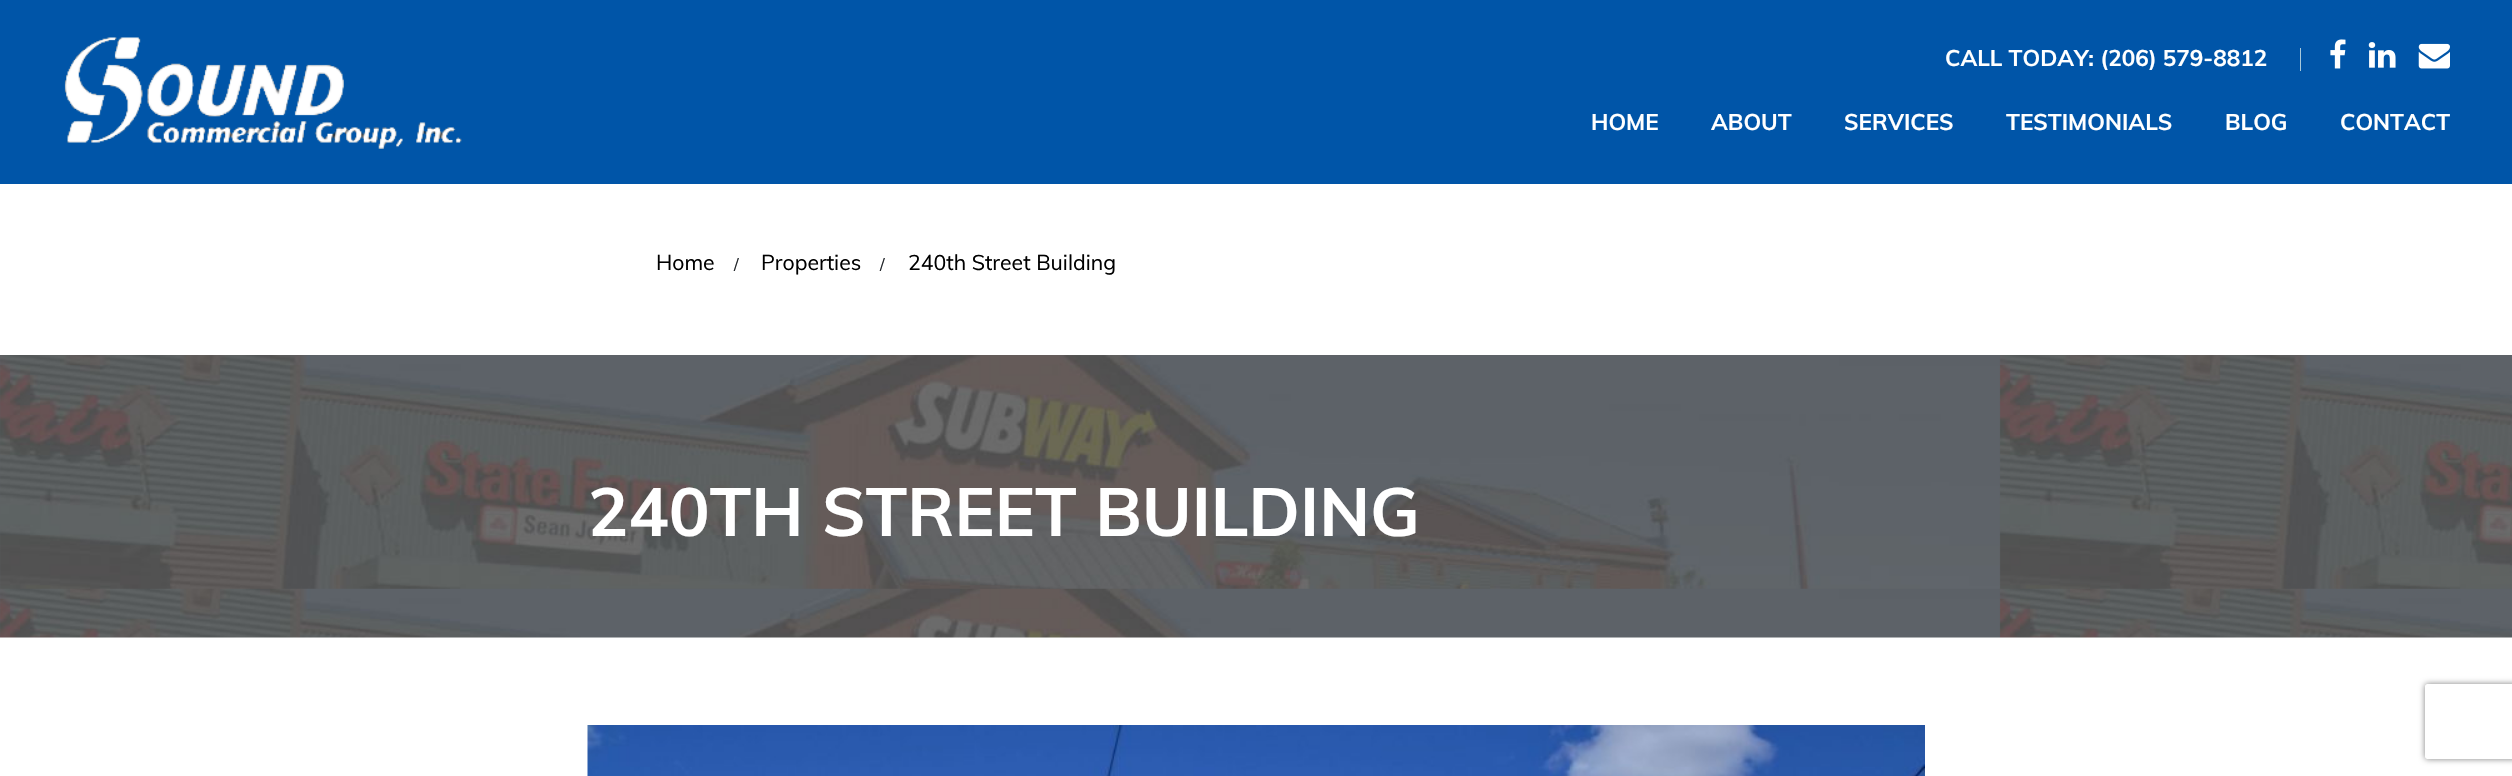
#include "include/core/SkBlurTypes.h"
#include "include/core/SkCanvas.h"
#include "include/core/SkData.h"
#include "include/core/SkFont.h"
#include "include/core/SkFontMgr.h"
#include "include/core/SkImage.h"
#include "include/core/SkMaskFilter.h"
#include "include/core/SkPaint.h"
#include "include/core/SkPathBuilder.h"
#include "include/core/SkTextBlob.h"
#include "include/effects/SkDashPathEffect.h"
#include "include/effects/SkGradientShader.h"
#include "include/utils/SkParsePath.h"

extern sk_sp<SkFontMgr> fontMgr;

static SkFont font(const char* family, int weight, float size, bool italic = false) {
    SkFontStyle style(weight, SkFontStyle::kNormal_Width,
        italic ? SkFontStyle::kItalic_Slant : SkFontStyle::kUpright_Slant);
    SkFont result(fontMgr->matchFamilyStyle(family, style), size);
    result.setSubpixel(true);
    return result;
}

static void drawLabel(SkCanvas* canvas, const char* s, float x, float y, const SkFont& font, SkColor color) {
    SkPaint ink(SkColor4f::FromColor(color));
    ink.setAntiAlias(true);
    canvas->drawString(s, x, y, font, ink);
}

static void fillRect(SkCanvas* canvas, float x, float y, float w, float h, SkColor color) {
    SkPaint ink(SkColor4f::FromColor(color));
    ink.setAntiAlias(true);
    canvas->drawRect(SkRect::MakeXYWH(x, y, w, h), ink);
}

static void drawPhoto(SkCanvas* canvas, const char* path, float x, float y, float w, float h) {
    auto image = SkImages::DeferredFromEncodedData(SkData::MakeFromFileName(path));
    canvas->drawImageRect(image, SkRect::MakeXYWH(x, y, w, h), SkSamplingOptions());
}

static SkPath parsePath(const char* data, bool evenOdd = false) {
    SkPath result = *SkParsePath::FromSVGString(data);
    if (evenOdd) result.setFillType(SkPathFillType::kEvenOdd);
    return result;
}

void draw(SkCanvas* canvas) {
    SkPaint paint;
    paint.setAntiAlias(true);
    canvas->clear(0xFFFFFFFF);
    fillRect(canvas, 0, 0, 2512, 184, 0xFF0055A8);
    drawPhoto(canvas, "assets/img1.png", 64, 37, 398, 112);
    SkFont font1 = font("Muli", 700, 22.5f);
    drawLabel(canvas, "CALL TODAY: (206) 579-8812", 1945, 66, font1, 0xFFFFFFFF);
    fillRect(canvas, 2300, 48, 1, 23, 0xFFA8C9DB);
    drawPhoto(canvas, "assets/img2.png", 2330, 39, 16, 30);
    drawPhoto(canvas, "assets/img3.png", 2368, 42, 28, 26);
    drawPhoto(canvas, "assets/img4.png", 2418, 43, 32, 26);
    drawLabel(canvas, "HOME", 1591, 130, font1, 0xFFFFFFFF);
    drawLabel(canvas, "ABOUT", 1711, 130, font1, 0xFFFFFFFF);
    drawLabel(canvas, "SERVICES", 1844, 130, font1, 0xFFFFFFFF);
    drawLabel(canvas, "TESTIMONIALS", 2006, 130, font1, 0xFFFFFFFF);
    drawLabel(canvas, "BLOG", 2225, 130, font1, 0xFFFFFFFF);
    drawLabel(canvas, "CONTACT", 2340, 130, font1, 0xFFFFFFFF);
    SkFont font2 = font("Muli", 400, 21.25f);
    drawLabel(canvas, "Home", 656, 270, font2, 0xFF000000);
    SkFont font3 = font("Muli", 400, 16);
    drawLabel(canvas, "/", 734, 270, font3, 0xFF212529);
    drawLabel(canvas, "Properties", 761, 270, font2, 0xFF000000);
    drawLabel(canvas, "/", 880, 270, font3, 0xFF212529);
    drawLabel(canvas, "240th Street Building", 908, 270, font2, 0xFF000000);
    drawPhoto(canvas, "assets/img5.png", 0, 355, 2512, 283);
    SkFont font4 = font("Muli", 700, 67.5f);
    drawLabel(canvas, "240TH STREET BUILDING", 588, 536, font4, 0xFFFFFFFF);
    drawPhoto(canvas, "assets/img6.png", 587, 725, 1338, 51);
    canvas->save();
    canvas->clipPath(parsePath("M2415 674H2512V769H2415ZM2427.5 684H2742.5C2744 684 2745 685 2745 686.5V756.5C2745 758 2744 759 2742.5 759H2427.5C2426 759 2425 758 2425 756.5V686.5C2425 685 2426 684 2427.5 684Z", true), true);
    paint.setColor(0xFF808080);
    paint.setMaskFilter(SkMaskFilter::MakeBlur(kNormal_SkBlurStyle, 3));
    canvas->drawRoundRect(SkRect::MakeXYWH(2425, 684, 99, 75), 2.5f, 2.5f, paint);
    paint.setMaskFilter(nullptr);
    canvas->restore();
}
